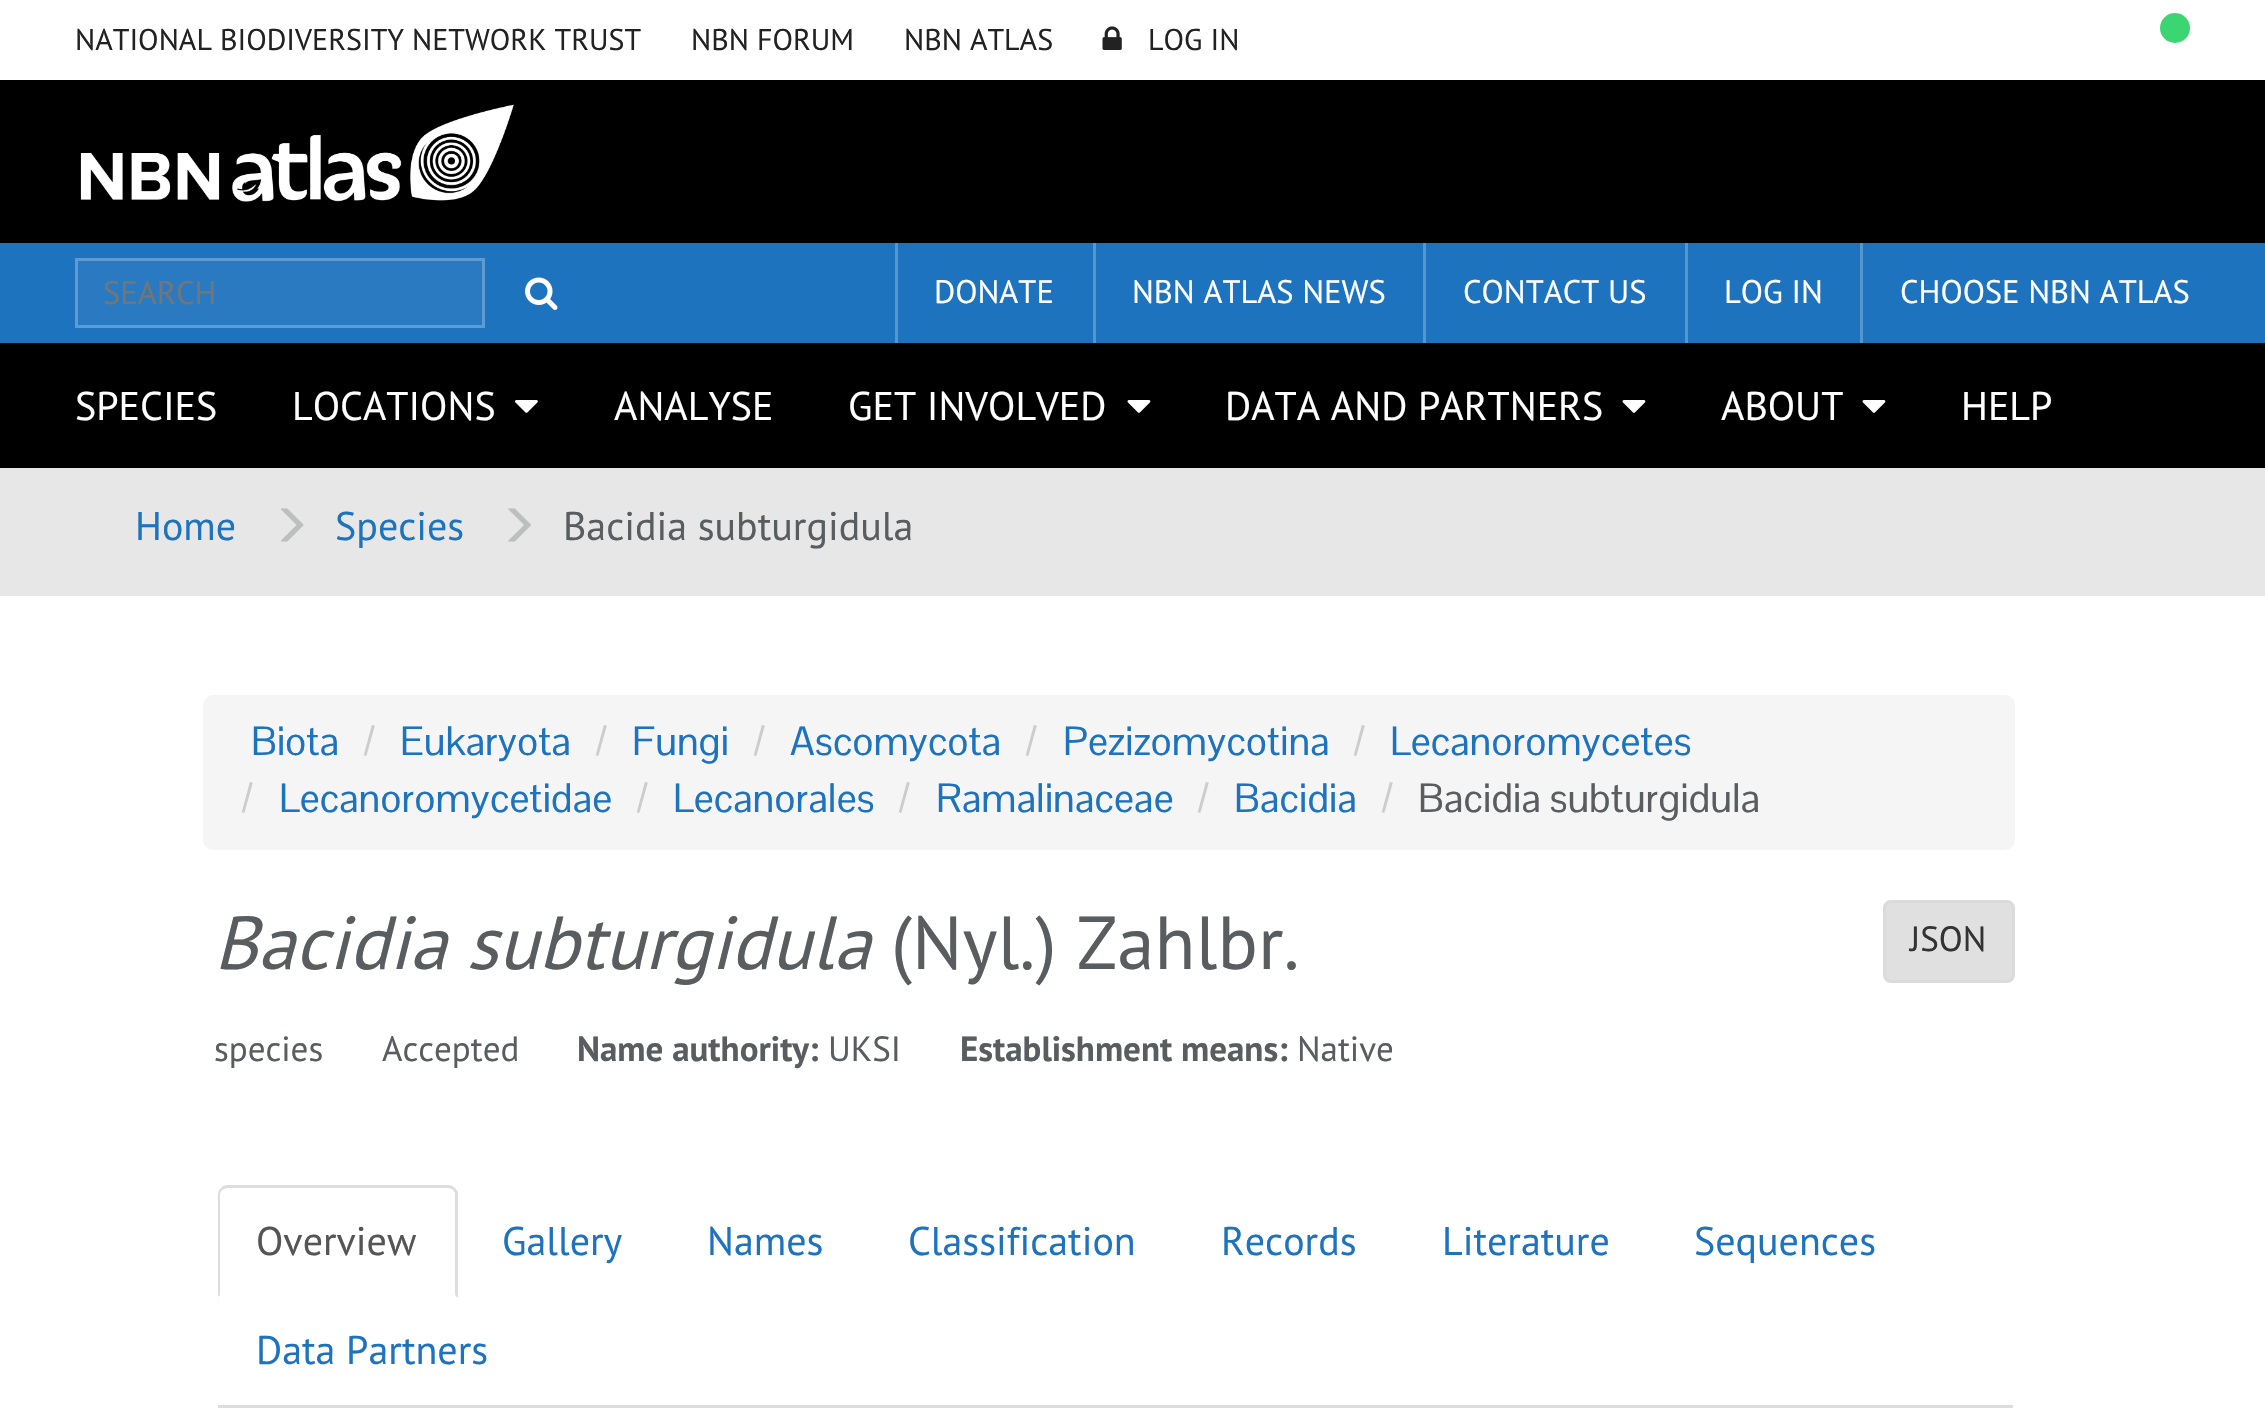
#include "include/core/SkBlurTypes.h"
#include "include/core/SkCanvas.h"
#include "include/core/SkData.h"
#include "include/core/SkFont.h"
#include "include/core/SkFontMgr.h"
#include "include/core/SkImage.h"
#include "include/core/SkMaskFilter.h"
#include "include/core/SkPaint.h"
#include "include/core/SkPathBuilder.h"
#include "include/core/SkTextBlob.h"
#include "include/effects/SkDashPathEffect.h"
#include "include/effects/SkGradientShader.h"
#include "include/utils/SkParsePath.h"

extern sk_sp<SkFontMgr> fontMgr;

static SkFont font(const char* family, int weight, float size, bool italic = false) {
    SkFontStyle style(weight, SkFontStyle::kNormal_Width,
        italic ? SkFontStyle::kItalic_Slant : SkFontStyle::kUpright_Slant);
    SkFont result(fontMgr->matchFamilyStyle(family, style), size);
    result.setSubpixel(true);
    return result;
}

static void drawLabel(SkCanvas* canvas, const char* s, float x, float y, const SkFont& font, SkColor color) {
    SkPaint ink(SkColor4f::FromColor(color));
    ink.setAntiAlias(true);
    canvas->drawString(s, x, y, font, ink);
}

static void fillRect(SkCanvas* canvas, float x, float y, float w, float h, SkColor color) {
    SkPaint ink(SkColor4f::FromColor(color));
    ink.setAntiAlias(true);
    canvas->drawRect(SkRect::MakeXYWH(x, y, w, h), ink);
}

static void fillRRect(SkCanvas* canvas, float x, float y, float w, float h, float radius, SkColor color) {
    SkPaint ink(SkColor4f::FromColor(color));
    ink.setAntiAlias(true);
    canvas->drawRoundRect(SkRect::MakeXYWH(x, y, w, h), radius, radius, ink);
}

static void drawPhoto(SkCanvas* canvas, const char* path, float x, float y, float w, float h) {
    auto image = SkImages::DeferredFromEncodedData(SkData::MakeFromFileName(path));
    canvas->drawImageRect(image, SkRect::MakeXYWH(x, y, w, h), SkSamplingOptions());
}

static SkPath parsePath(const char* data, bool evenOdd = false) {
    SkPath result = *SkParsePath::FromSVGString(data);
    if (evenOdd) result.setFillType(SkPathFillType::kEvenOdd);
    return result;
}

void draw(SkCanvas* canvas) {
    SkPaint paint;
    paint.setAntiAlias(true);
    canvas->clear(0xFFFFFFFF);
    fillRect(canvas, 0, 80, 2265, 388, 0xFF000000);
    SkFont font1 = font("PT Sans", 400, 30);
    drawLabel(canvas, "NATIONAL BIODIVERSITY NETWORK TRUST", 75, 50, font1, 0xFF222222);
    drawLabel(canvas, "NBN FORUM", 691, 50, font1, 0xFF222222);
    drawLabel(canvas, "NBN ATLAS", 904, 50, font1, 0xFF222222);
    drawPhoto(canvas, "assets/img1.png", 1102, 26, 20, 24);
    drawLabel(canvas, "LOG IN", 1148, 50, font1, 0xFF222222);
    paint.setColor(0xFF3BD671);
    canvas->drawCircle(2175, 28, 15, paint);
    drawPhoto(canvas, "assets/img2.png", 80, 104, 434, 98);
    fillRect(canvas, 0, 243, 2265, 100, 0xFF1E73BE);
    paint.setColor(0xFF297AC1);
    canvas->drawRect(SkRect::MakeXYWH(76.5f, 259.5f, 407, 67), paint);
    paint.setStroke(true);
    paint.setStrokeWidth(3);
    paint.setColor(0xFF5F9BD1);
    canvas->drawRect(SkRect::MakeXYWH(76.5f, 259.5f, 407, 67), paint);
    SkFont font2 = font("PT Sans", 400, 32.5f);
    drawLabel(canvas, "SEARCH", 103, 304, font2, 0xFF757575);
    drawPhoto(canvas, "assets/img3.png", 525, 277, 33, 33);
    fillRect(canvas, 895, 243, 3, 100, 0xFF5696CE);
    drawLabel(canvas, "DONATE", 934, 303, font2, 0xFFFFFFFF);
    fillRect(canvas, 1093, 243, 3, 100, 0xFF5696CE);
    drawLabel(canvas, "NBN ATLAS NEWS", 1132, 303, font2, 0xFFFFFFFF);
    fillRect(canvas, 1423, 243, 3, 100, 0xFF5696CE);
    drawLabel(canvas, "CONTACT US", 1463, 303, font2, 0xFFFFFFFF);
    fillRect(canvas, 1685, 243, 3, 100, 0xFF5696CE);
    drawLabel(canvas, "LOG IN", 1724, 303, font2, 0xFFFFFFFF);
    fillRect(canvas, 1860, 243, 3, 100, 0xFF5696CE);
    drawLabel(canvas, "CHOOSE NBN ATLAS", 1900, 303, font2, 0xFFFFFFFF);
    SkFont font3 = font("PT Sans", 400, 40);
    drawLabel(canvas, "SPECIES", 75, 420, font3, 0xFFFFFFFF);
    drawLabel(canvas, "LOCATIONS", 292, 420, font3, 0xFFFFFFFF);
    drawPhoto(canvas, "assets/img4.png", 515, 400, 23, 13);
    drawLabel(canvas, "ANALYSE", 614, 420, font3, 0xFFFFFFFF);
    drawLabel(canvas, "GET INVOLVED", 848, 420, font3, 0xFFFFFFFF);
    drawPhoto(canvas, "assets/img5.png", 1127, 400, 24, 13);
    drawLabel(canvas, "DATA AND PARTNERS", 1225, 420, font3, 0xFFFFFFFF);
    drawPhoto(canvas, "assets/img5.png", 1622, 400, 24, 13);
    drawLabel(canvas, "ABOUT", 1721, 420, font3, 0xFFFFFFFF);
    drawPhoto(canvas, "assets/img5.png", 1862, 400, 24, 13);
    drawLabel(canvas, "HELP", 1961, 420, font3, 0xFFFFFFFF);
    fillRect(canvas, 0, 468, 2265, 128, 0xFFE7E7E7);
    drawLabel(canvas, "Home", 135, 540, font3, 0xFF1E73BE);
    drawPhoto(canvas, "assets/img6.png", 281, 508, 23, 34);
    drawLabel(canvas, "Species", 335, 540, font3, 0xFF1E73BE);
    drawPhoto(canvas, "assets/img7.png", 508, 508, 23, 34);
    drawLabel(canvas, "Bacidia subturgidula", 563, 540, font3, 0xFF595D5F);
    fillRRect(canvas, 203, 695, 1812, 155, 10, 0xFFF5F5F5);
    SkFont font4 = font("Pontano Sans", 400, 40);
    drawLabel(canvas, "Biota", 251, 755, font4, 0xFF1E73BE);
    drawLabel(canvas, "/", 363, 755, font4, 0xFFCCCCCC);
    drawLabel(canvas, "Eukaryota", 400, 755, font4, 0xFF1E73BE);
    drawLabel(canvas, "/", 595, 755, font4, 0xFFCCCCCC);
    drawLabel(canvas, "Fungi", 632, 755, font4, 0xFF1E73BE);
    drawLabel(canvas, "/", 753, 755, font4, 0xFFCCCCCC);
    drawLabel(canvas, "Ascomycota", 790, 755, font4, 0xFF1E73BE);
    drawLabel(canvas, "/", 1025, 755, font4, 0xFFCCCCCC);
    drawLabel(canvas, "Pezizomycotina", 1063, 755, font4, 0xFF1E73BE);
    drawLabel(canvas, "/", 1353, 755, font4, 0xFFCCCCCC);
    drawLabel(canvas, "Lecanoromycetes", 1390, 755, font4, 0xFF1E73BE);
    drawLabel(canvas, "/", 241, 812, font4, 0xFFCCCCCC);
    drawLabel(canvas, "Lecanoromycetidae", 279, 812, font4, 0xFF1E73BE);
    drawLabel(canvas, "/", 636, 812, font4, 0xFFCCCCCC);
    drawLabel(canvas, "Lecanorales", 673, 812, font4, 0xFF1E73BE);
    drawLabel(canvas, "/", 898, 812, font4, 0xFFCCCCCC);
    drawLabel(canvas, "Ramalinaceae", 936, 812, font4, 0xFF1E73BE);
    drawLabel(canvas, "/", 1197, 812, font4, 0xFFCCCCCC);
    drawLabel(canvas, "Bacidia", 1234, 812, font4, 0xFF1E73BE);
    drawLabel(canvas, "/", 1381, 812, font4, 0xFFCCCCCC);
    drawLabel(canvas, "Bacidia subturgidula", 1418, 812, font4, 0xFF595D5F);
    SkFont font5 = font("PT Sans", 400, 75, true);
    drawLabel(canvas, "Bacidia subturgidula", 214, 969, font5, 0xFF595D5F);
    SkFont font6 = font("PT Sans", 400, 75);
    drawLabel(canvas, "(Nyl.) Zahlbr.", 891, 969, font6, 0xFF595D5F);
    paint.setStroke(false);
    paint.setColor(0xFFE0E0E0);
    canvas->drawRoundRect(SkRect::MakeXYWH(1884.5f, 901.5f, 129, 80), 6.5f, 6.5f, paint);
    paint.setStroke(true);
    paint.setColor(0xFFDBDBDB);
    canvas->drawRoundRect(SkRect::MakeXYWH(1884.5f, 901.5f, 129, 80), 6.5f, 6.5f, paint);
    SkFont font7 = font("PT Sans", 400, 35);
    drawLabel(canvas, "JSON", 1910, 951, font7, 0xFF333333);
    drawLabel(canvas, "species", 214, 1061, font7, 0xFF595D5F);
    drawLabel(canvas, "Accepted", 382, 1061, font7, 0xFF595D5F);
    SkFont font8 = font("PT Sans", 700, 35);
    drawLabel(canvas, "Name authority:", 577, 1061, font8, 0xFF595D5F);
    drawLabel(canvas, "UKSI", 828, 1061, font7, 0xFF595D5F);
    drawLabel(canvas, "Establishment means:", 960, 1061, font8, 0xFF595D5F);
    drawLabel(canvas, "Native", 1297, 1061, font7, 0xFF595D5F);
    fillRect(canvas, 218, 1405, 1795, 3, 0xFFDDDDDD);
    paint.setStroke(false);
    paint.setColor(0xFFDDDDDD);
    canvas->drawPath(parsePath("M228 1185C225 1185 222 1186 221 1188L222 1190C224 1189 226 1188 228 1188H448C450 1188 452 1189 453 1190L455 1188C453 1186 450 1185 448 1185Z"), paint);
    canvas->drawPath(parsePath("M455 1188L458 1192V1298L455 1295V1193L453 1190Z"), paint);
    canvas->drawPath(parsePath("M221 1188C219 1190 218 1192 218 1195V1297L220 1295V1195C220 1193 221 1191 222 1190Z"), paint);
    drawLabel(canvas, "Overview", 256, 1255, font3, 0xFF555555);
    drawLabel(canvas, "Gallery", 502, 1255, font3, 0xFF1E73BE);
    drawLabel(canvas, "Names", 707, 1255, font3, 0xFF1E73BE);
    drawLabel(canvas, "Classification", 908, 1255, font3, 0xFF1E73BE);
    drawLabel(canvas, "Records", 1221, 1255, font3, 0xFF1E73BE);
    drawLabel(canvas, "Literature", 1442, 1255, font3, 0xFF1E73BE);
    drawLabel(canvas, "Sequences", 1694, 1255, font3, 0xFF1E73BE);
    drawLabel(canvas, "Data Partners", 256, 1364, font3, 0xFF1E73BE);
}
